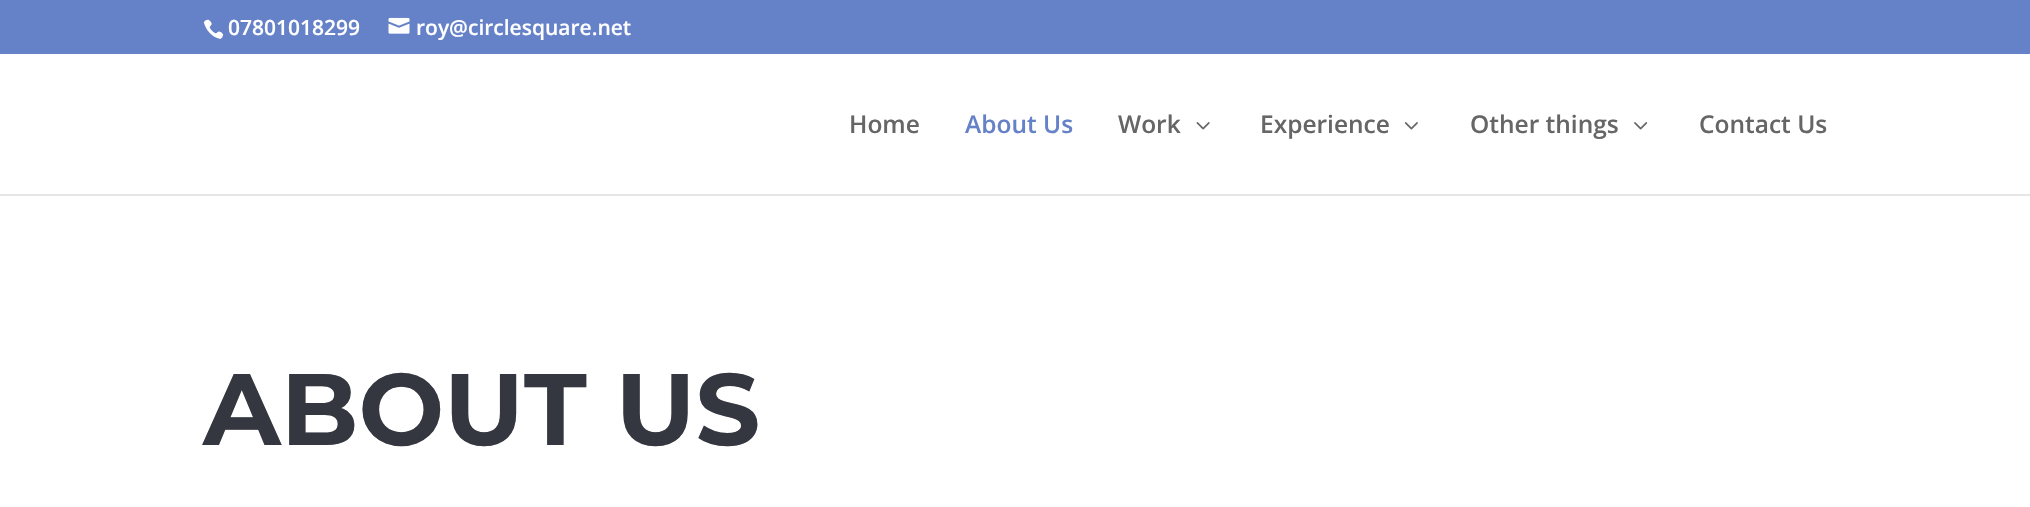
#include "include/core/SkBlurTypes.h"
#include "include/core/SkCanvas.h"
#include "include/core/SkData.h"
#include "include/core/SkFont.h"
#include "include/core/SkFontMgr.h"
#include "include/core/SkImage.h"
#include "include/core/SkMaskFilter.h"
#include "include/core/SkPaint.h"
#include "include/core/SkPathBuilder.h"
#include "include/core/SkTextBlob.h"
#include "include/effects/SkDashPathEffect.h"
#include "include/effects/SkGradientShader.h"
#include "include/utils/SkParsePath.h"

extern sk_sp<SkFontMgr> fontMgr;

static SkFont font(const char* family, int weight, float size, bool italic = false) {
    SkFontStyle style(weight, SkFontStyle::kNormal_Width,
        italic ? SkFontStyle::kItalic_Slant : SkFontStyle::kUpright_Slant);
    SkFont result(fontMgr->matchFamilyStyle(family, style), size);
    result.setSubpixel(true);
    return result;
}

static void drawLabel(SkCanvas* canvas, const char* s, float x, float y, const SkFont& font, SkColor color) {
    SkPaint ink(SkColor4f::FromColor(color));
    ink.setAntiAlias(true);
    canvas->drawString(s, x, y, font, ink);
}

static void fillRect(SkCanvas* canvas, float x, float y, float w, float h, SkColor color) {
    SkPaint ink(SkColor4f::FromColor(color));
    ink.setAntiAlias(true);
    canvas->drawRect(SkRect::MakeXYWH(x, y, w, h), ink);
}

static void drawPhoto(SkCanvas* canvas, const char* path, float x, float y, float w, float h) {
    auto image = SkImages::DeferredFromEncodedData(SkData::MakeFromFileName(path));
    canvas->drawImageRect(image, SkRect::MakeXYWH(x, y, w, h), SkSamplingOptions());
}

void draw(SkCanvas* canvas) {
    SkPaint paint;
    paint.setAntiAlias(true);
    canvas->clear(0xFFFFFFFF);
    fillRect(canvas, 0, 0, 2030, 54, 0xFF6581C7);
    drawPhoto(canvas, "assets/img1.png", 203, 19, 21, 20);
    SkFont font1 = font("Open Sans", 600, 21);
    drawLabel(canvas, "07801018299", 228, 35, font1, 0xFFFFFFFF);
    drawPhoto(canvas, "assets/img2.png", 388, 17, 22, 17);
    drawLabel(canvas, "roy@circlesquare.net", 416, 35, font1, 0xFFFFFFFF);
    fillRect(canvas, 0, 194, 2030, 2, 0xFFE6E6E6);
    SkFont font2 = font("Open Sans", 600, 24.5f);
    drawLabel(canvas, "Home", 849, 133, font2, 0xFF666666);
    drawLabel(canvas, "About Us", 965, 133, font2, 0xFF6581C7);
    drawLabel(canvas, "Work", 1118, 133, font2, 0xFF666666);
    drawPhoto(canvas, "assets/img3.png", 1196, 122, 14, 8);
    drawLabel(canvas, "Experience", 1260, 133, font2, 0xFF666666);
    drawPhoto(canvas, "assets/img4.png", 1404, 122, 14, 8);
    drawLabel(canvas, "Other things", 1470, 133, font2, 0xFF666666);
    drawPhoto(canvas, "assets/img5.png", 1634, 122, 14, 8);
    drawLabel(canvas, "Contact Us", 1699, 133, font2, 0xFF666666);
    SkFont font3 = font("Montserrat", 100, 101.5f);
    drawLabel(canvas, "ABOUT US", 203, 445, font3, 0xFF353740);
}
